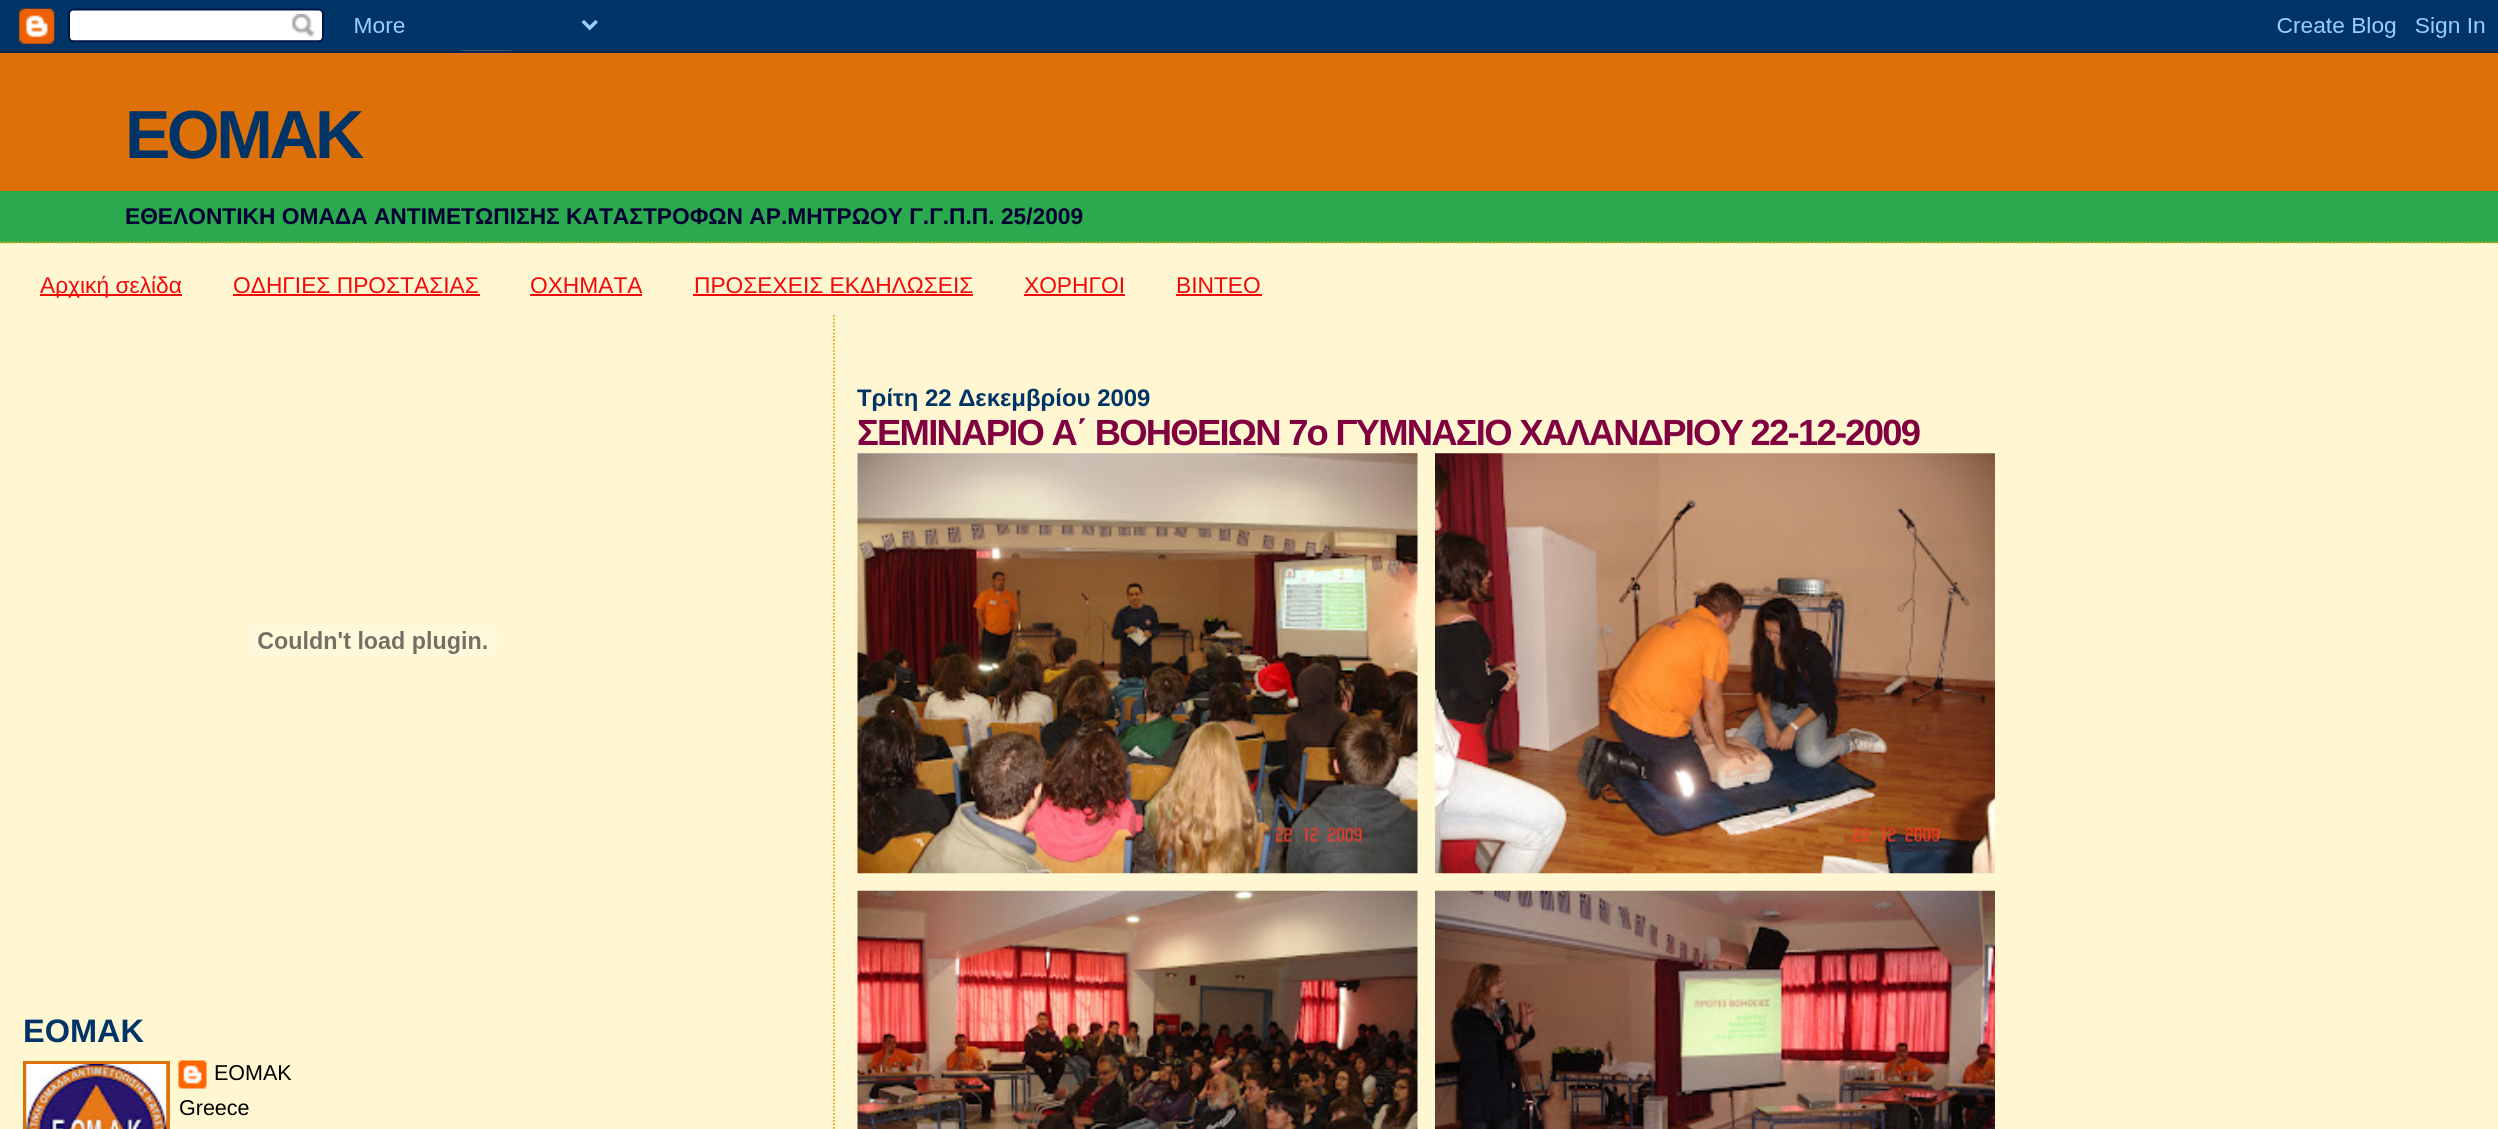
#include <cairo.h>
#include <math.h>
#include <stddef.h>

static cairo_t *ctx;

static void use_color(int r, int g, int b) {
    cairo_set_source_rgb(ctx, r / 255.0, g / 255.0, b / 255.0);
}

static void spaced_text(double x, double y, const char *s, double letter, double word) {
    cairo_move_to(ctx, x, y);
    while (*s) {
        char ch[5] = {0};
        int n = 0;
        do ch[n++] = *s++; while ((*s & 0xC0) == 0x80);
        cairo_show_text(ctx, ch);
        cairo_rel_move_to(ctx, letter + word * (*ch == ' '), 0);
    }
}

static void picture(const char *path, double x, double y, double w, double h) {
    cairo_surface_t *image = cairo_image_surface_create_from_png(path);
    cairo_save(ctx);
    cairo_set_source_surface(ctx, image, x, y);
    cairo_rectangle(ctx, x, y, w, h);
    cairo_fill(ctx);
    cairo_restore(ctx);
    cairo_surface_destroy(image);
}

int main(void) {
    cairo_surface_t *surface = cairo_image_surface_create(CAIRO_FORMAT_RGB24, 2498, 1129);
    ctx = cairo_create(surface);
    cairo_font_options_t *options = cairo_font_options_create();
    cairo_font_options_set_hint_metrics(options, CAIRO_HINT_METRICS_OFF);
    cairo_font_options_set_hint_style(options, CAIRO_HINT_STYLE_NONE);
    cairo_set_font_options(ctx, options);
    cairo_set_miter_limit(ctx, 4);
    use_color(255, 246, 210);
    cairo_paint(ctx);
    picture("img1.png", 0, 0, 2498, 53);
    use_color(43, 169, 79);
    cairo_rectangle(ctx, 0, 191, 2498, 52);
    cairo_fill(ctx);
    cairo_new_path(ctx);
    cairo_move_to(ctx, 0, 242.5);
    cairo_line_to(ctx, 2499, 242.5);
    use_color(224, 173, 18);
    cairo_set_line_width(ctx, 1.8);
    cairo_set_dash(ctx, (double[]){1.75, 1.75}, 2, 0);
    cairo_stroke(ctx);
    use_color(222, 112, 8);
    cairo_rectangle(ctx, 0, 53, 2498, 138);
    cairo_fill(ctx);
    cairo_select_font_face(ctx, "Liberation Sans", CAIRO_FONT_SLANT_NORMAL, CAIRO_FONT_WEIGHT_BOLD);
    cairo_set_font_size(ctx, 68);
    use_color(0, 51, 102);
    spaced_text(125, 158, "EOMAK", -3.5, 0);
    cairo_set_font_size(ctx, 22.75);
    use_color(0, 0, 51);
    cairo_move_to(ctx, 125, 224);
    cairo_show_text(ctx, "ΕΘΕΛΟΝΤΙΚΗ ΟΜΑΔΑ ΑΝΤΙΜΕΤΩΠΙΣΗΣ ΚΑΤΑΣΤΡΟΦΩΝ ΑΡ.ΜΗΤΡΩΟΥ Γ.Γ.Π.Π. 25/2009");
    use_color(242, 10, 10);
    cairo_rectangle(ctx, 40, 294, 142, 2);
    cairo_fill(ctx);
    cairo_select_font_face(ctx, "Liberation Sans", CAIRO_FONT_SLANT_NORMAL, CAIRO_FONT_WEIGHT_NORMAL);
    cairo_move_to(ctx, 40, 293);
    cairo_show_text(ctx, "Αρχική σελίδα");
    cairo_move_to(ctx, 233, 293);
    cairo_show_text(ctx, "ΟΔΗΓΙΕΣ ΠΡΟΣΤΑΣΙΑΣ");
    cairo_rectangle(ctx, 233, 294, 247, 2);
    cairo_fill(ctx);
    cairo_move_to(ctx, 530, 293);
    cairo_show_text(ctx, "ΟΧΗΜΑΤΑ");
    cairo_rectangle(ctx, 530, 294, 112, 2);
    cairo_fill(ctx);
    cairo_move_to(ctx, 694, 293);
    cairo_show_text(ctx, "ΠΡΟΣΕΧΕΙΣ ΕΚΔΗΛΩΣΕΙΣ");
    cairo_rectangle(ctx, 693, 294, 280, 2);
    cairo_fill(ctx);
    cairo_move_to(ctx, 1024, 293);
    cairo_show_text(ctx, "ΧΟΡΗΓΟΙ");
    cairo_rectangle(ctx, 1024, 294, 101, 2);
    cairo_fill(ctx);
    cairo_move_to(ctx, 1176, 293);
    cairo_show_text(ctx, "ΒΙΝΤΕΟ");
    cairo_rectangle(ctx, 1176, 294, 86, 2);
    cairo_fill(ctx);
    cairo_new_path(ctx);
    cairo_move_to(ctx, 834, 315);
    cairo_line_to(ctx, 834, 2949);
    use_color(224, 173, 18);
    cairo_stroke(ctx);
    cairo_select_font_face(ctx, "Liberation Sans", CAIRO_FONT_SLANT_NORMAL, CAIRO_FONT_WEIGHT_BOLD);
    cairo_set_font_size(ctx, 23.9);
    use_color(0, 51, 102);
    cairo_move_to(ctx, 857, 406);
    cairo_show_text(ctx, "Τρίτη 22 Δεκεμβρίου 2009");
    cairo_set_font_size(ctx, 36.4);
    use_color(128, 0, 64);
    spaced_text(857, 445, "ΣΕΜΙΝΑΡΙΟ Α΄ ΒΟΗΘΕΙΩΝ 7ο ΓΥΜΝΑΣΙΟ ΧΑΛΑΝΔΡΙΟΥ 22-12-2009", -1.75, 0);
    picture("img2.png", 857, 453, 561, 421);
    picture("img3.png", 1435, 453, 560, 421);
    picture("img4.png", 857, 890, 561, 239);
    picture("img5.png", 1435, 890, 560, 239);
    picture("img6.png", 247, 625, 252, 31);
    cairo_set_font_size(ctx, 32.5);
    use_color(0, 51, 102);
    cairo_move_to(ctx, 23, 1042);
    cairo_show_text(ctx, "EOMAK");
    cairo_rectangle(ctx, 25, 1063, 143, 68);
    use_color(222, 112, 8);
    cairo_set_line_width(ctx, 4);
    cairo_set_dash(ctx, NULL, 0, 0);
    cairo_stroke(ctx);
    picture("img7.png", 26, 1064, 141, 65);
    picture("img8.png", 178, 1060, 29, 29);
    cairo_select_font_face(ctx, "Liberation Sans", CAIRO_FONT_SLANT_NORMAL, CAIRO_FONT_WEIGHT_NORMAL);
    cairo_set_font_size(ctx, 21.5);
    use_color(0, 0, 0);
    cairo_move_to(ctx, 214, 1080);
    cairo_show_text(ctx, "ΕΟΜΑΚ");
    cairo_move_to(ctx, 179, 1115);
    cairo_show_text(ctx, "Greece");
    cairo_surface_write_to_png(surface, "result.png");
    cairo_font_options_destroy(options);
    cairo_destroy(ctx);
    cairo_surface_destroy(surface);
    return 0;
}
